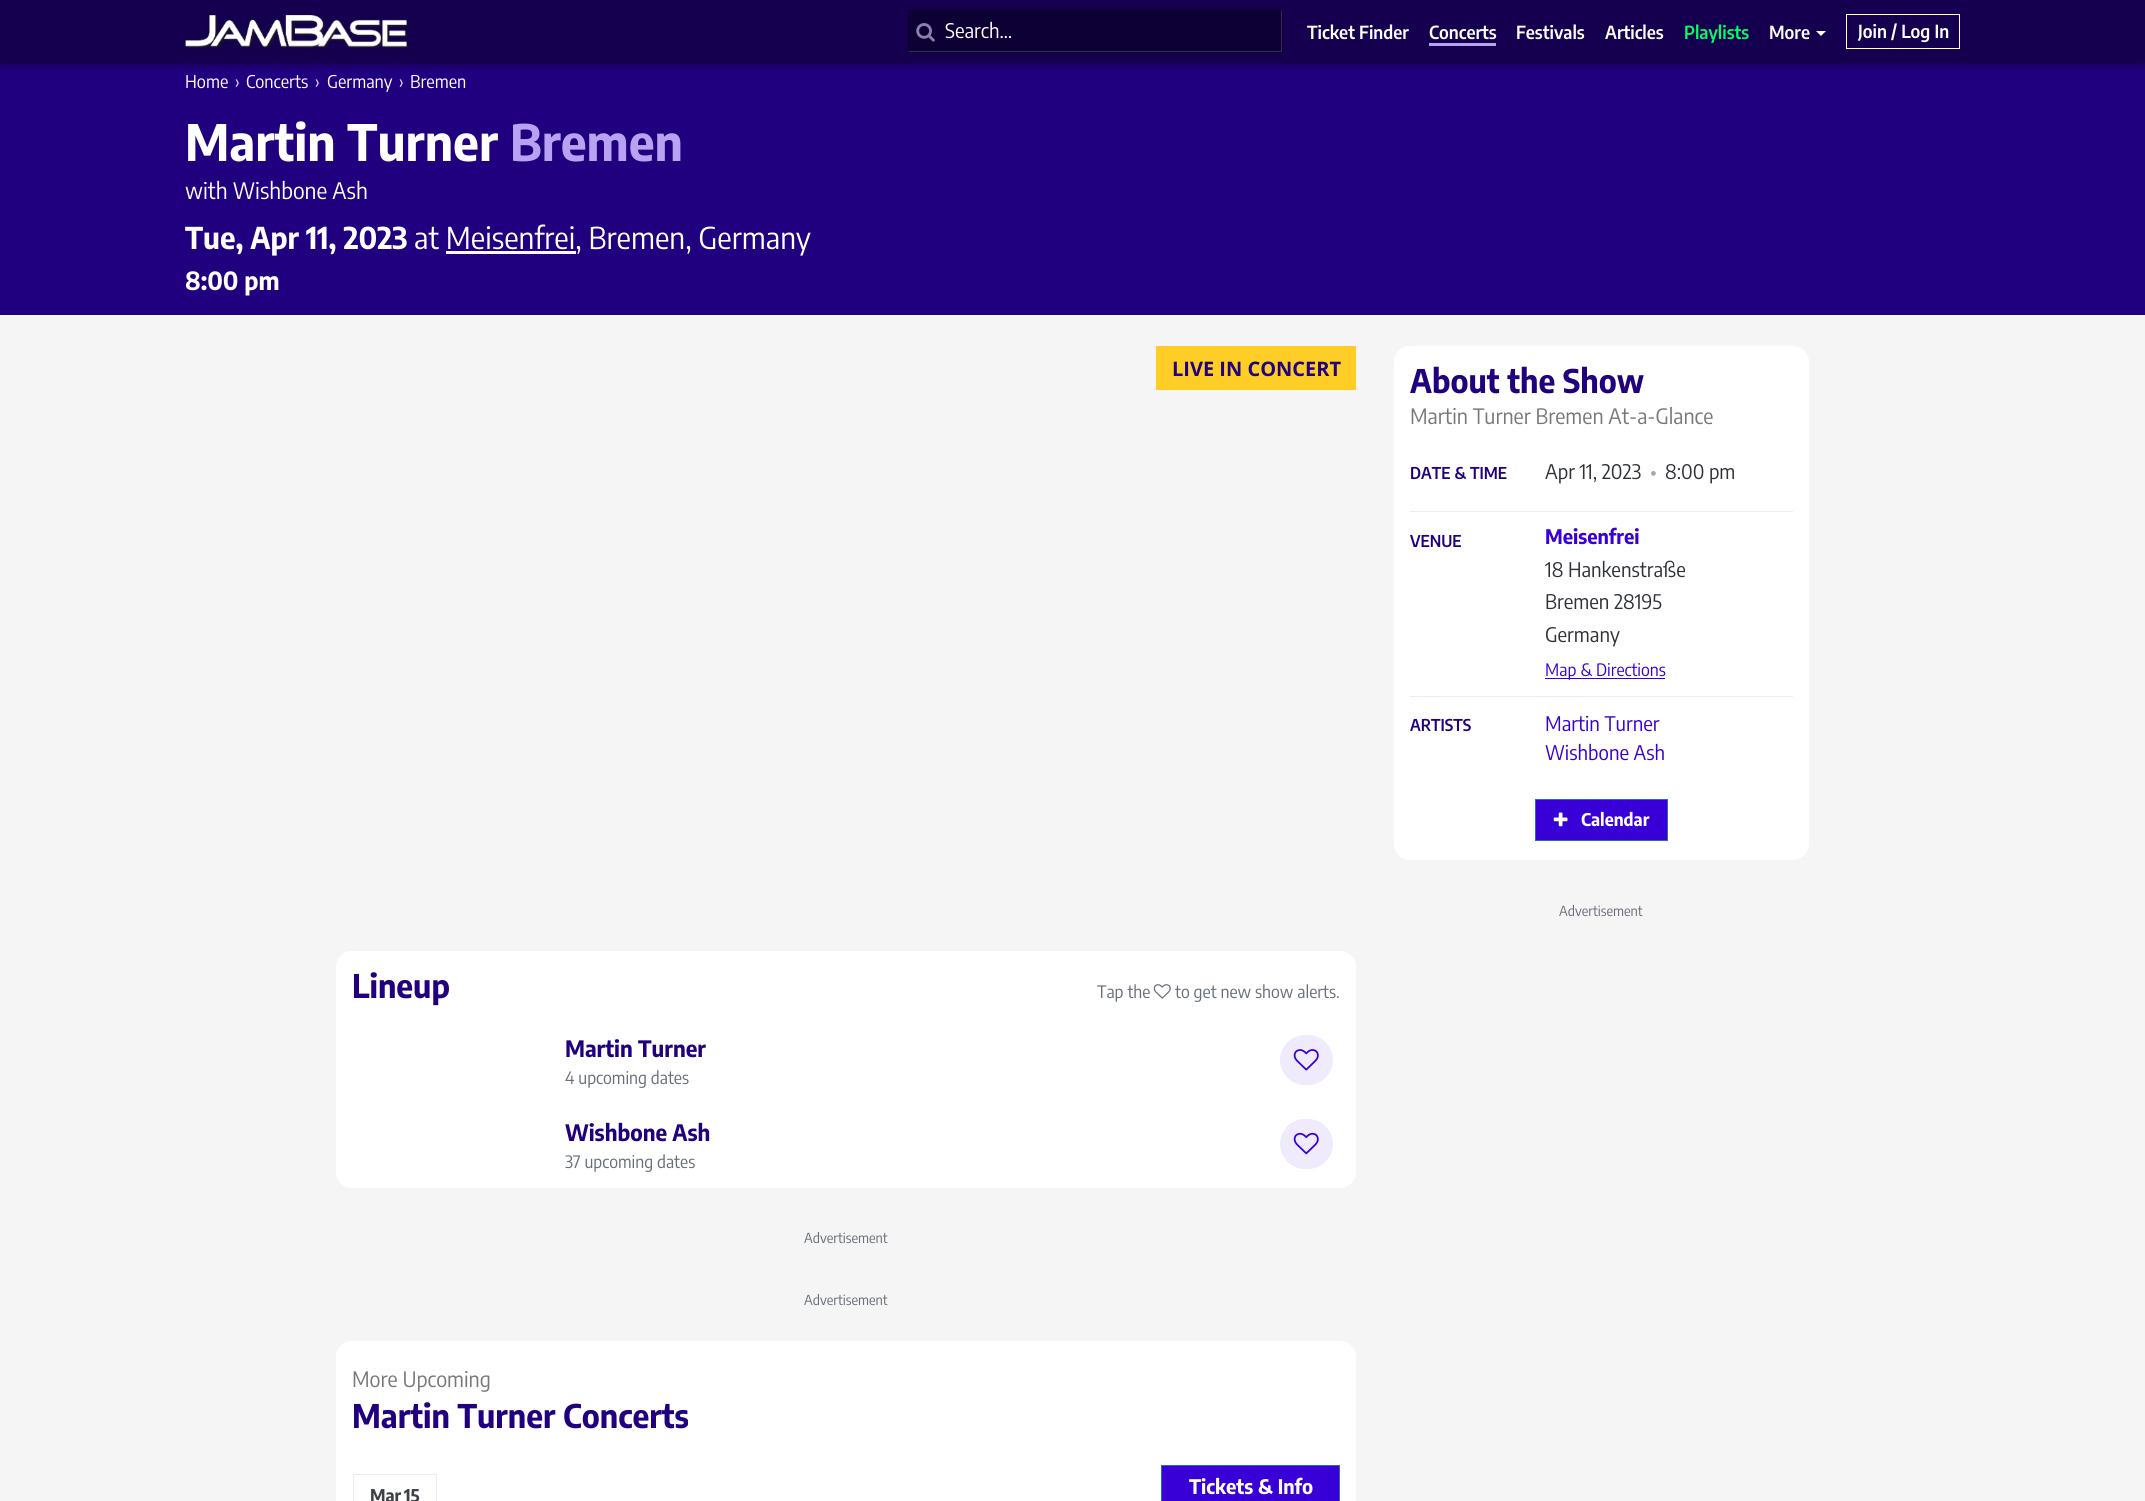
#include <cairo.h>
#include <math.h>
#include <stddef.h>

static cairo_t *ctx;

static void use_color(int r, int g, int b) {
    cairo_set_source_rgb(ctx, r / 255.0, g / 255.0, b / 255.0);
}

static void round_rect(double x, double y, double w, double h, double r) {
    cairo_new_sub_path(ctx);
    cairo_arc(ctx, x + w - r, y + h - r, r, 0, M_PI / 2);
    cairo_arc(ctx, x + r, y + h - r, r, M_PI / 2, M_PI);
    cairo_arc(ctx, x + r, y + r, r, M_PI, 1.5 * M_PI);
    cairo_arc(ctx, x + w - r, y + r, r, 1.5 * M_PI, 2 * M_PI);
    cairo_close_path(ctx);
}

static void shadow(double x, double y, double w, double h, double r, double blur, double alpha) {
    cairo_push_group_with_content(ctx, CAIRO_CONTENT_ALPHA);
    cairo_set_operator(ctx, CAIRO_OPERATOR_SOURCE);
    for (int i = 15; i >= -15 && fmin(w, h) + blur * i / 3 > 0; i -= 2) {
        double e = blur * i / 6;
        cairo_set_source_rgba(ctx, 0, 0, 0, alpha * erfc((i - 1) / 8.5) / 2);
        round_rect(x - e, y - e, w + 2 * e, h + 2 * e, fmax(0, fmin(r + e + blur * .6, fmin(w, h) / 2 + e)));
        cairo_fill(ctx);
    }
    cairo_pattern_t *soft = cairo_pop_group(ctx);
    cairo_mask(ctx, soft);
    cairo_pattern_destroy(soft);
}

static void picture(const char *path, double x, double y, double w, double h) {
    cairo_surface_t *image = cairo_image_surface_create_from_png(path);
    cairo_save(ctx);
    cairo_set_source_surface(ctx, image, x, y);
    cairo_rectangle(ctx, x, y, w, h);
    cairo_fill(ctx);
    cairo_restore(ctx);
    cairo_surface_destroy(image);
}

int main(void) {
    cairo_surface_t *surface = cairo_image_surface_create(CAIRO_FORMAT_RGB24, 2145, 1501);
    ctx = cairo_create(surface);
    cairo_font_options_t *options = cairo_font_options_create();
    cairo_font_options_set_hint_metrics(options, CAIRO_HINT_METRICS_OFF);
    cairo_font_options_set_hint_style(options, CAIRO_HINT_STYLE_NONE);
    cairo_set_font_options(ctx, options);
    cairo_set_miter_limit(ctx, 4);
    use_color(245, 245, 245);
    cairo_paint(ctx);
    use_color(33, 0, 128);
    cairo_rectangle(ctx, 0, 63, 2145, 252);
    cairo_fill(ctx);
    use_color(0, 0, 0);
    shadow(0, 0, 2145, 63, 0, 4.5, 0.66);
    use_color(20, 0, 78);
    cairo_rectangle(ctx, 0, 0, 2145, 63);
    cairo_fill(ctx);
    picture("img1.png", 185, 15, 225, 34);
    use_color(13, 0, 52);
    cairo_rectangle(ctx, 908, 10, 375, 43);
    cairo_fill(ctx);
    use_color(11, 0, 43);
    cairo_new_path(ctx);
    cairo_move_to(ctx, 908, 10);
    cairo_line_to(ctx, 1282, 10);
    cairo_line_to(ctx, 1281, 11);
    cairo_line_to(ctx, 909, 11);
    cairo_close_path(ctx);
    cairo_fill(ctx);
    cairo_set_source_rgba(ctx, 1, 1, 1, 0.16);
    cairo_new_path(ctx);
    cairo_move_to(ctx, 1282, 10);
    cairo_line_to(ctx, 1282, 52);
    cairo_line_to(ctx, 1281, 51);
    cairo_line_to(ctx, 1281, 11);
    cairo_close_path(ctx);
    cairo_fill(ctx);
    cairo_new_path(ctx);
    cairo_move_to(ctx, 1282, 52);
    cairo_line_to(ctx, 908, 52);
    cairo_line_to(ctx, 909, 51);
    cairo_line_to(ctx, 1281, 51);
    cairo_close_path(ctx);
    cairo_fill(ctx);
    cairo_set_source_rgba(ctx, 0, 0, 0, 0.18);
    cairo_new_path(ctx);
    cairo_move_to(ctx, 908, 52);
    cairo_line_to(ctx, 908, 10);
    cairo_line_to(ctx, 909, 11);
    cairo_line_to(ctx, 909, 51);
    cairo_close_path(ctx);
    cairo_fill(ctx);
    picture("img2.png", 916, 23, 19, 19);
    cairo_select_font_face(ctx, "Encode Sans Semi Condensed", CAIRO_FONT_SLANT_NORMAL, CAIRO_FONT_WEIGHT_NORMAL);
    cairo_set_font_size(ctx, 20);
    use_color(255, 255, 255);
    cairo_move_to(ctx, 945, 38);
    cairo_show_text(ctx, "Search…");
    cairo_select_font_face(ctx, "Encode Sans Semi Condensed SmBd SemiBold", CAIRO_FONT_SLANT_NORMAL, CAIRO_FONT_WEIGHT_NORMAL);
    cairo_set_font_size(ctx, 18);
    cairo_move_to(ctx, 1307, 39);
    cairo_show_text(ctx, "Ticket Finder");
    cairo_move_to(ctx, 1429, 39);
    cairo_show_text(ctx, "Concerts");
    use_color(183, 163, 241);
    cairo_rectangle(ctx, 1429, 43, 67, 3);
    cairo_fill(ctx);
    use_color(255, 255, 255);
    cairo_move_to(ctx, 1516, 39);
    cairo_show_text(ctx, "Festivals");
    cairo_move_to(ctx, 1605, 39);
    cairo_show_text(ctx, "Articles");
    use_color(0, 255, 102);
    cairo_move_to(ctx, 1684, 39);
    cairo_show_text(ctx, "Playlists");
    use_color(255, 255, 255);
    cairo_move_to(ctx, 1769, 39);
    cairo_show_text(ctx, "More");
    cairo_new_path(ctx);
    cairo_move_to(ctx, 1816, 31);
    cairo_line_to(ctx, 1826, 31);
    cairo_line_to(ctx, 1821, 36);
    cairo_close_path(ctx);
    cairo_fill(ctx);
    cairo_rectangle(ctx, 1846.5, 14.5, 113, 34);
    cairo_set_line_width(ctx, 1);
    cairo_stroke(ctx);
    cairo_move_to(ctx, 1858, 38);
    cairo_show_text(ctx, "Join / Log In");
    cairo_select_font_face(ctx, "Encode Sans Semi Condensed", CAIRO_FONT_SLANT_NORMAL, CAIRO_FONT_WEIGHT_NORMAL);
    cairo_set_font_size(ctx, 17.5);
    cairo_move_to(ctx, 185, 88);
    cairo_show_text(ctx, "Home");
    use_color(224, 215, 249);
    cairo_move_to(ctx, 235, 88);
    cairo_show_text(ctx, "›");
    use_color(255, 255, 255);
    cairo_move_to(ctx, 246, 88);
    cairo_show_text(ctx, "Concerts");
    use_color(224, 215, 249);
    cairo_move_to(ctx, 315, 88);
    cairo_show_text(ctx, "›");
    use_color(255, 255, 255);
    cairo_move_to(ctx, 327, 88);
    cairo_show_text(ctx, "Germany");
    use_color(224, 215, 249);
    cairo_move_to(ctx, 399, 88);
    cairo_show_text(ctx, "›");
    use_color(255, 255, 255);
    cairo_move_to(ctx, 410, 88);
    cairo_show_text(ctx, "Bremen");
    cairo_select_font_face(ctx, "Encode Sans Semi Condensed", CAIRO_FONT_SLANT_NORMAL, CAIRO_FONT_WEIGHT_BOLD);
    cairo_set_font_size(ctx, 50);
    cairo_move_to(ctx, 185, 161);
    cairo_show_text(ctx, "Martin Turner");
    use_color(183, 163, 241);
    cairo_move_to(ctx, 510, 161);
    cairo_show_text(ctx, "Bremen");
    cairo_select_font_face(ctx, "Encode Sans Semi Condensed", CAIRO_FONT_SLANT_NORMAL, CAIRO_FONT_WEIGHT_NORMAL);
    cairo_set_font_size(ctx, 22.5);
    use_color(255, 255, 255);
    cairo_move_to(ctx, 185, 199);
    cairo_show_text(ctx, "with Wishbone Ash");
    cairo_select_font_face(ctx, "Encode Sans Semi Condensed", CAIRO_FONT_SLANT_NORMAL, CAIRO_FONT_WEIGHT_BOLD);
    cairo_set_font_size(ctx, 30);
    cairo_move_to(ctx, 185, 249);
    cairo_show_text(ctx, "Tue, Apr 11, 2023");
    cairo_select_font_face(ctx, "Encode Sans Semi Condensed", CAIRO_FONT_SLANT_NORMAL, CAIRO_FONT_WEIGHT_NORMAL);
    cairo_move_to(ctx, 414, 249);
    cairo_show_text(ctx, "at Meisenfrei, Bremen, Germany");
    cairo_rectangle(ctx, 446, 251, 130, 3);
    cairo_fill(ctx);
    cairo_select_font_face(ctx, "Encode Sans Semi Condensed", CAIRO_FONT_SLANT_NORMAL, CAIRO_FONT_WEIGHT_BOLD);
    cairo_set_font_size(ctx, 25);
    cairo_move_to(ctx, 185, 290);
    cairo_show_text(ctx, "8:00 pm");
    use_color(255, 206, 38);
    cairo_rectangle(ctx, 1156, 346, 200, 44);
    cairo_fill(ctx);
    cairo_select_font_face(ctx, "Open Sans", CAIRO_FONT_SLANT_NORMAL, CAIRO_FONT_WEIGHT_BOLD);
    cairo_set_font_size(ctx, 20);
    use_color(33, 0, 128);
    cairo_move_to(ctx, 1172, 376);
    cairo_show_text(ctx, "LIVE IN CONCERT");
    use_color(255, 255, 255);
    cairo_new_path(ctx);
    cairo_move_to(ctx, 352, 951);
    cairo_line_to(ctx, 1340, 951);
    cairo_curve_to(ctx, 1349, 951, 1356, 958, 1356, 967);
    cairo_line_to(ctx, 1356, 1020);
    cairo_line_to(ctx, 336, 1020);
    cairo_line_to(ctx, 336, 967);
    cairo_curve_to(ctx, 336, 958, 343, 951, 352, 951);
    cairo_close_path(ctx);
    cairo_fill(ctx);
    cairo_select_font_face(ctx, "Encode Sans Semi Condensed", CAIRO_FONT_SLANT_NORMAL, CAIRO_FONT_WEIGHT_BOLD);
    cairo_set_font_size(ctx, 32.5);
    use_color(33, 0, 128);
    cairo_move_to(ctx, 352, 998);
    cairo_show_text(ctx, "Lineup");
    cairo_select_font_face(ctx, "Encode Sans Semi Condensed", CAIRO_FONT_SLANT_NORMAL, CAIRO_FONT_WEIGHT_NORMAL);
    cairo_set_font_size(ctx, 17);
    use_color(102, 109, 118);
    cairo_move_to(ctx, 1097, 998);
    cairo_show_text(ctx, "Tap the");
    picture("img3.png", 1153, 984, 18, 15);
    cairo_move_to(ctx, 1175, 998);
    cairo_show_text(ctx, "to get new show alerts.");
    use_color(255, 255, 255);
    cairo_new_path(ctx);
    cairo_move_to(ctx, 336, 1020);
    cairo_line_to(ctx, 1356, 1020);
    cairo_line_to(ctx, 1356, 1172);
    cairo_curve_to(ctx, 1356, 1181, 1349, 1188, 1340, 1188);
    cairo_line_to(ctx, 352, 1188);
    cairo_curve_to(ctx, 343, 1188, 336, 1181, 336, 1172);
    cairo_close_path(ctx);
    cairo_fill(ctx);
    cairo_select_font_face(ctx, "Encode Sans Semi Condensed", CAIRO_FONT_SLANT_NORMAL, CAIRO_FONT_WEIGHT_BOLD);
    cairo_set_font_size(ctx, 22.5);
    use_color(33, 0, 128);
    cairo_move_to(ctx, 565, 1057);
    cairo_show_text(ctx, "Martin Turner");
    cairo_select_font_face(ctx, "Encode Sans Semi Condensed", CAIRO_FONT_SLANT_NORMAL, CAIRO_FONT_WEIGHT_NORMAL);
    cairo_set_font_size(ctx, 17);
    use_color(102, 109, 118);
    cairo_move_to(ctx, 565, 1084);
    cairo_show_text(ctx, "4 upcoming dates");
    use_color(239, 235, 252);
    round_rect(1280.5, 1035.5, 52, 49, 24.5);
    cairo_fill_preserve(ctx);
    cairo_stroke(ctx);
    picture("img4.png", 1293, 1049, 26, 22);
    cairo_select_font_face(ctx, "Encode Sans Semi Condensed", CAIRO_FONT_SLANT_NORMAL, CAIRO_FONT_WEIGHT_BOLD);
    cairo_set_font_size(ctx, 22.5);
    use_color(33, 0, 128);
    cairo_move_to(ctx, 565, 1141);
    cairo_show_text(ctx, "Wishbone Ash");
    cairo_select_font_face(ctx, "Encode Sans Semi Condensed", CAIRO_FONT_SLANT_NORMAL, CAIRO_FONT_WEIGHT_NORMAL);
    cairo_set_font_size(ctx, 17);
    use_color(102, 109, 118);
    cairo_move_to(ctx, 565, 1168);
    cairo_show_text(ctx, "37 upcoming dates");
    use_color(239, 235, 252);
    round_rect(1280.5, 1119.5, 52, 49, 24.5);
    cairo_fill_preserve(ctx);
    cairo_stroke(ctx);
    picture("img5.png", 1293, 1132, 26, 23);
    cairo_set_font_size(ctx, 13.75);
    use_color(102, 109, 118);
    cairo_move_to(ctx, 804, 1243);
    cairo_show_text(ctx, "Advertisement");
    cairo_move_to(ctx, 804, 1305);
    cairo_show_text(ctx, "Advertisement");
    use_color(255, 255, 255);
    round_rect(336, 1341, 1020, 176, 16);
    cairo_fill(ctx);
    cairo_set_font_size(ctx, 21.1);
    use_color(119, 119, 119);
    cairo_move_to(ctx, 352, 1387);
    cairo_show_text(ctx, "More Upcoming");
    cairo_select_font_face(ctx, "Encode Sans Semi Condensed", CAIRO_FONT_SLANT_NORMAL, CAIRO_FONT_WEIGHT_BOLD);
    cairo_set_font_size(ctx, 32.5);
    use_color(33, 0, 128);
    cairo_move_to(ctx, 352, 1428);
    cairo_show_text(ctx, "Martin Turner Concerts");
    use_color(235, 236, 238);
    cairo_rectangle(ctx, 353, 1474, 85, 1);
    cairo_fill(ctx);
    cairo_rectangle(ctx, 436, 1474, 1, 27);
    cairo_fill(ctx);
    cairo_rectangle(ctx, 353, 1474, 1, 27);
    cairo_fill(ctx);
    cairo_set_font_size(ctx, 17.5);
    use_color(61, 65, 71);
    cairo_move_to(ctx, 370, 1502);
    cairo_show_text(ctx, "Mar");
    cairo_move_to(ctx, 404, 1502);
    cairo_show_text(ctx, "15");
    use_color(56, 0, 215);
    cairo_rectangle(ctx, 1161.5, 1465.5, 178, 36);
    cairo_fill_preserve(ctx);
    use_color(46, 109, 164);
    cairo_stroke(ctx);
    cairo_set_font_size(ctx, 20);
    use_color(255, 255, 255);
    cairo_move_to(ctx, 1189, 1494);
    cairo_show_text(ctx, "Tickets & Info");
    round_rect(1394, 346, 415, 514, 16);
    cairo_fill(ctx);
    cairo_set_font_size(ctx, 32.5);
    use_color(33, 0, 128);
    cairo_move_to(ctx, 1410, 393);
    cairo_show_text(ctx, "About the Show");
    cairo_select_font_face(ctx, "Encode Sans Semi Condensed", CAIRO_FONT_SLANT_NORMAL, CAIRO_FONT_WEIGHT_NORMAL);
    cairo_set_font_size(ctx, 21.1);
    use_color(119, 119, 119);
    cairo_move_to(ctx, 1410, 424);
    cairo_show_text(ctx, "Martin Turner Bremen At-a-Glance");
    cairo_select_font_face(ctx, "Encode Sans Semi Condensed SmBd SemiBold", CAIRO_FONT_SLANT_NORMAL, CAIRO_FONT_WEIGHT_NORMAL);
    cairo_set_font_size(ctx, 16.25);
    use_color(33, 0, 128);
    cairo_move_to(ctx, 1410, 479);
    cairo_show_text(ctx, "DATE & TIME");
    cairo_select_font_face(ctx, "Encode Sans Semi Condensed", CAIRO_FONT_SLANT_NORMAL, CAIRO_FONT_WEIGHT_NORMAL);
    cairo_set_font_size(ctx, 20);
    use_color(46, 49, 53);
    cairo_move_to(ctx, 1545, 479);
    cairo_show_text(ctx, "Apr 11, 2023");
    use_color(163, 167, 173);
    cairo_move_to(ctx, 1650, 479);
    cairo_show_text(ctx, "•");
    use_color(46, 49, 53);
    cairo_move_to(ctx, 1665, 479);
    cairo_show_text(ctx, "8:00 pm");
    use_color(235, 236, 238);
    cairo_rectangle(ctx, 1410, 511, 383, 1);
    cairo_fill(ctx);
    cairo_select_font_face(ctx, "Encode Sans Semi Condensed SmBd SemiBold", CAIRO_FONT_SLANT_NORMAL, CAIRO_FONT_WEIGHT_NORMAL);
    cairo_set_font_size(ctx, 16.25);
    use_color(33, 0, 128);
    cairo_move_to(ctx, 1410, 547);
    cairo_show_text(ctx, "VENUE");
    cairo_select_font_face(ctx, "Encode Sans Semi Condensed", CAIRO_FONT_SLANT_NORMAL, CAIRO_FONT_WEIGHT_BOLD);
    cairo_set_font_size(ctx, 20);
    use_color(56, 0, 215);
    cairo_move_to(ctx, 1545, 544);
    cairo_show_text(ctx, "Meisenfrei");
    cairo_select_font_face(ctx, "Encode Sans Semi Condensed", CAIRO_FONT_SLANT_NORMAL, CAIRO_FONT_WEIGHT_NORMAL);
    use_color(46, 49, 53);
    cairo_move_to(ctx, 1545, 577);
    cairo_show_text(ctx, "18 Hankenstraße");
    cairo_move_to(ctx, 1545, 609);
    cairo_show_text(ctx, "Bremen 28195");
    cairo_move_to(ctx, 1545, 642);
    cairo_show_text(ctx, "Germany");
    use_color(56, 0, 215);
    cairo_rectangle(ctx, 1545, 678, 120, 1);
    cairo_fill(ctx);
    cairo_set_font_size(ctx, 17);
    cairo_move_to(ctx, 1545, 676);
    cairo_show_text(ctx, "Map & Directions");
    use_color(235, 236, 238);
    cairo_rectangle(ctx, 1410, 696, 383, 1);
    cairo_fill(ctx);
    cairo_select_font_face(ctx, "Encode Sans Semi Condensed SmBd SemiBold", CAIRO_FONT_SLANT_NORMAL, CAIRO_FONT_WEIGHT_NORMAL);
    cairo_set_font_size(ctx, 16.25);
    use_color(33, 0, 128);
    cairo_move_to(ctx, 1410, 731);
    cairo_show_text(ctx, "ARTISTS");
    cairo_select_font_face(ctx, "Encode Sans Semi Condensed", CAIRO_FONT_SLANT_NORMAL, CAIRO_FONT_WEIGHT_NORMAL);
    cairo_set_font_size(ctx, 20);
    use_color(56, 0, 215);
    cairo_move_to(ctx, 1545, 731);
    cairo_show_text(ctx, "Martin Turner");
    cairo_move_to(ctx, 1545, 760);
    cairo_show_text(ctx, "Wishbone Ash");
    cairo_rectangle(ctx, 1535.5, 799.5, 132, 41);
    cairo_fill_preserve(ctx);
    use_color(46, 109, 164);
    cairo_stroke(ctx);
    picture("img6.png", 1553, 812, 15, 15);
    cairo_select_font_face(ctx, "Encode Sans Semi Condensed", CAIRO_FONT_SLANT_NORMAL, CAIRO_FONT_WEIGHT_BOLD);
    cairo_set_font_size(ctx, 17.5);
    use_color(255, 255, 255);
    cairo_move_to(ctx, 1581, 826);
    cairo_show_text(ctx, "Calendar");
    cairo_select_font_face(ctx, "Encode Sans Semi Condensed", CAIRO_FONT_SLANT_NORMAL, CAIRO_FONT_WEIGHT_NORMAL);
    cairo_set_font_size(ctx, 13.75);
    use_color(102, 109, 118);
    cairo_move_to(ctx, 1559, 916);
    cairo_show_text(ctx, "Advertisement");
    cairo_surface_write_to_png(surface, "result.png");
    cairo_font_options_destroy(options);
    cairo_destroy(ctx);
    cairo_surface_destroy(surface);
    return 0;
}
